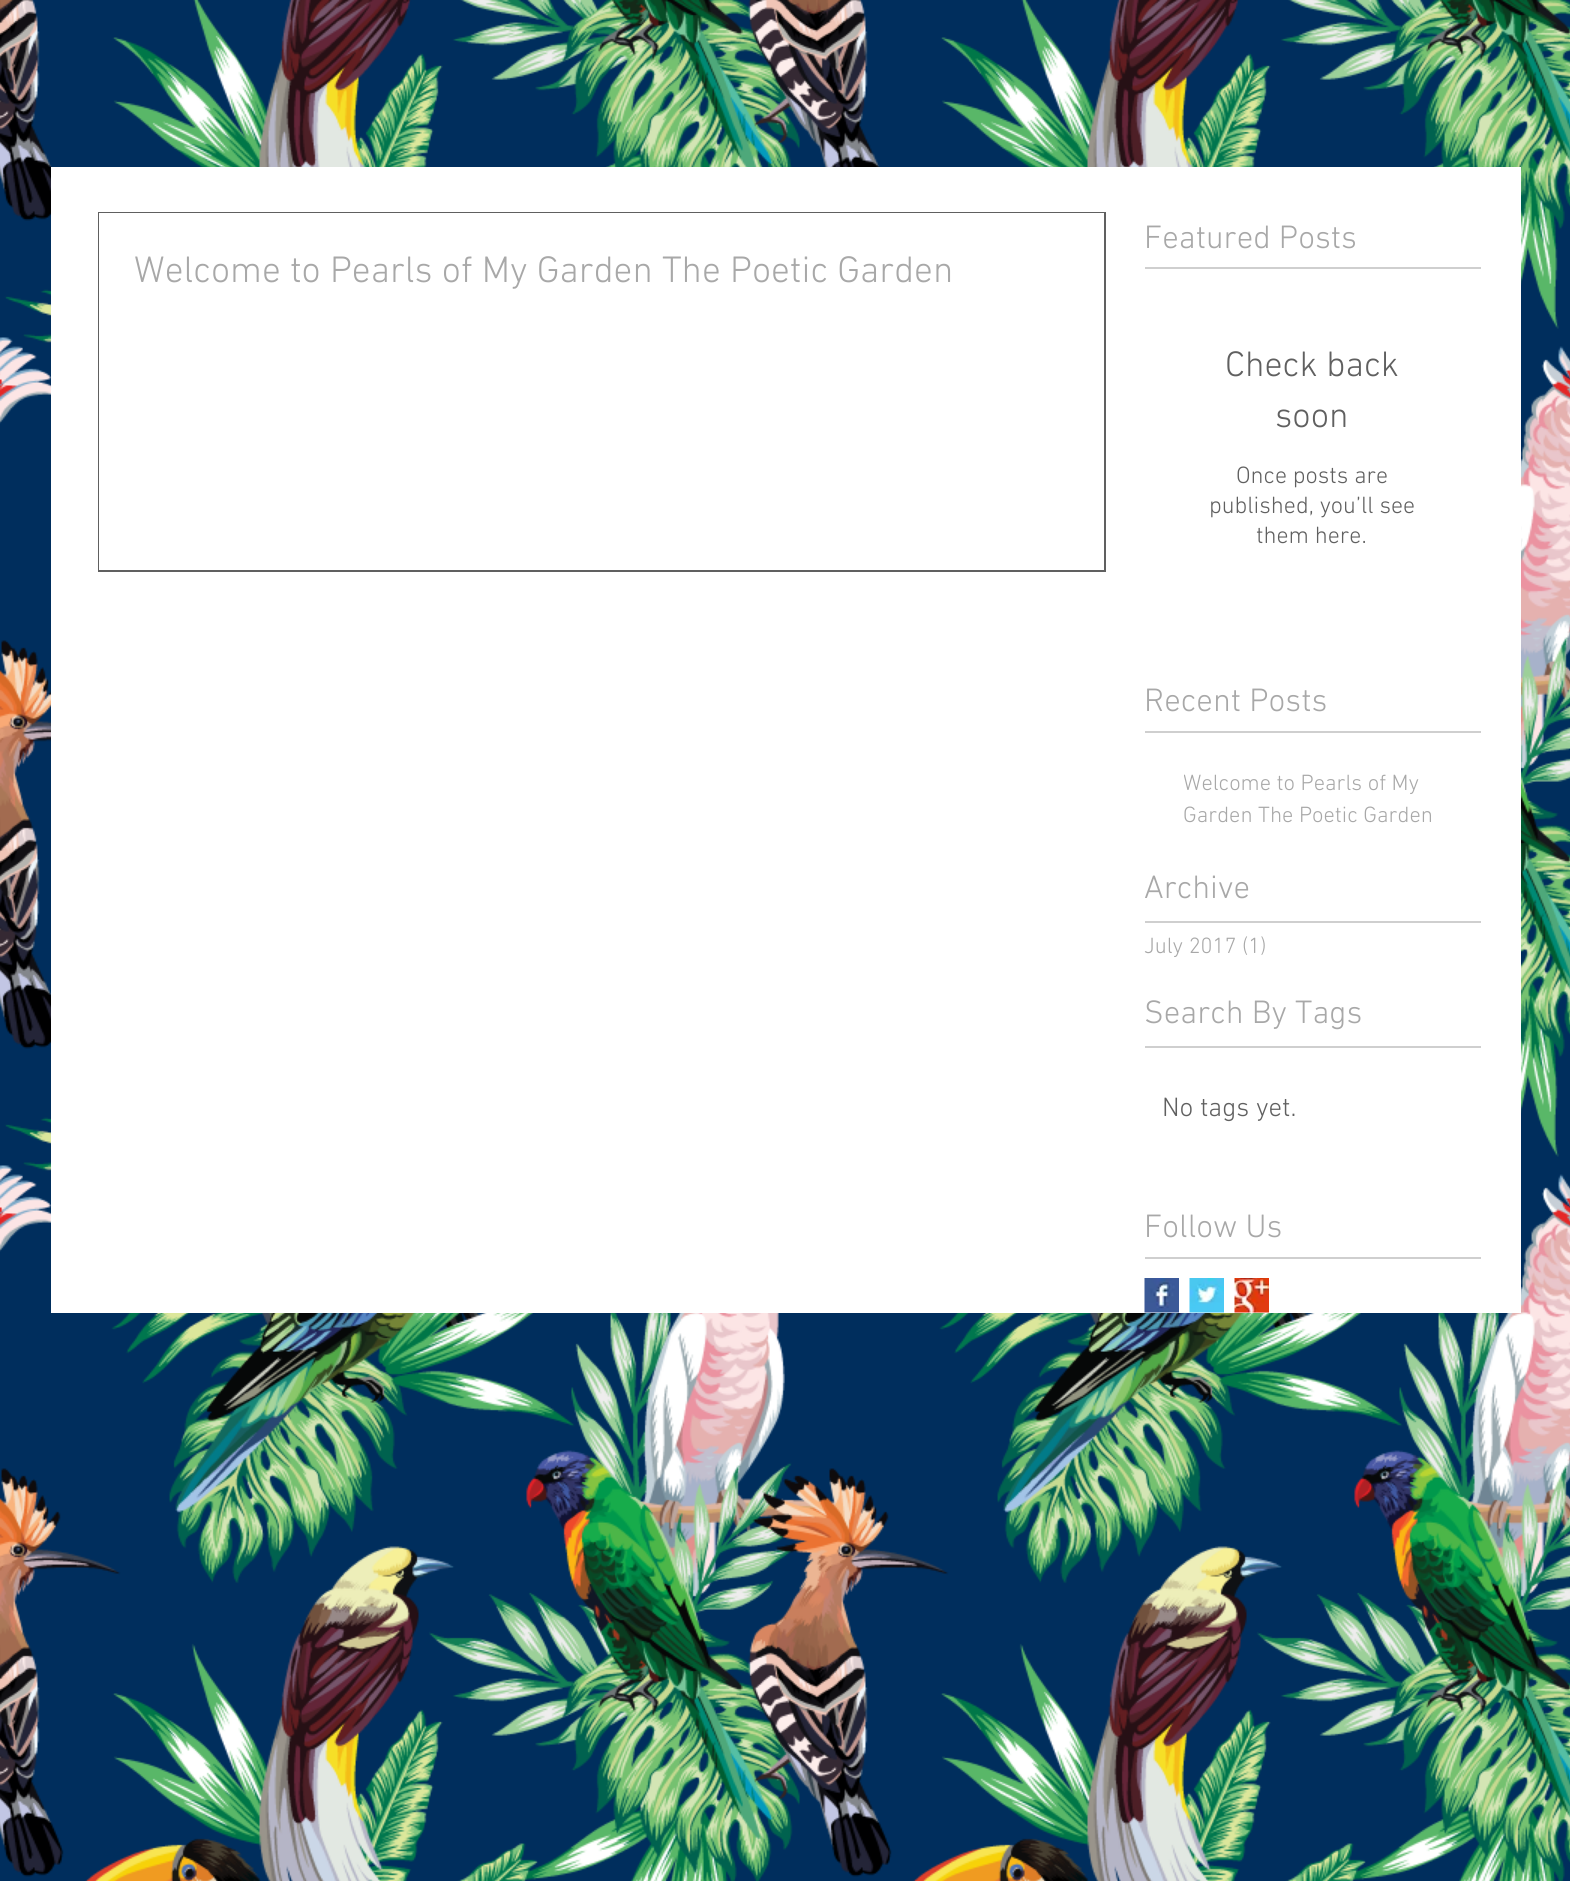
#include <cairo.h>
#include <math.h>
#include <stddef.h>

static cairo_t *ctx;

static void use_color(int r, int g, int b) {
    cairo_set_source_rgb(ctx, r / 255.0, g / 255.0, b / 255.0);
}

static void picture(const char *path, double x, double y, double w, double h) {
    cairo_surface_t *image = cairo_image_surface_create_from_png(path);
    cairo_save(ctx);
    cairo_set_source_surface(ctx, image, x, y);
    cairo_rectangle(ctx, x, y, w, h);
    cairo_fill(ctx);
    cairo_restore(ctx);
    cairo_surface_destroy(image);
}

int main(void) {
    cairo_surface_t *surface = cairo_image_surface_create(CAIRO_FORMAT_RGB24, 1570, 1881);
    ctx = cairo_create(surface);
    cairo_font_options_t *options = cairo_font_options_create();
    cairo_font_options_set_hint_metrics(options, CAIRO_HINT_METRICS_OFF);
    cairo_font_options_set_hint_style(options, CAIRO_HINT_STYLE_NONE);
    cairo_set_font_options(ctx, options);
    cairo_set_miter_limit(ctx, 4);
    use_color(0, 46, 93);
    cairo_paint(ctx);
    picture("img1.png", 0, 0, 1570, 1881);
    use_color(255, 255, 255);
    cairo_rectangle(ctx, 51, 167, 1470, 1146);
    cairo_fill(ctx);
    cairo_select_font_face(ctx, "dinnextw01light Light", CAIRO_FONT_SLANT_NORMAL, CAIRO_FONT_WEIGHT_NORMAL);
    cairo_set_font_size(ctx, 33);
    use_color(168, 168, 168);
    cairo_move_to(ctx, 1144, 248);
    cairo_show_text(ctx, "Featured Posts");
    cairo_rectangle(ctx, 99, 213, 1006, 358);
    use_color(96, 96, 96);
    cairo_stroke(ctx);
    use_color(255, 255, 255);
    cairo_rectangle(ctx, 99, 213, 1005, 357);
    cairo_fill(ctx);
    cairo_set_font_size(ctx, 37.5);
    use_color(168, 168, 168);
    cairo_move_to(ctx, 134, 282);
    cairo_show_text(ctx, "Welcome to Pearls of My Garden The Poetic Garden");
    use_color(207, 207, 207);
    cairo_rectangle(ctx, 1145, 267, 336, 2);
    cairo_fill(ctx);
    cairo_set_font_size(ctx, 36);
    use_color(96, 96, 96);
    cairo_move_to(ctx, 1225, 376);
    cairo_show_text(ctx, "Check back");
    cairo_move_to(ctx, 1275, 427);
    cairo_show_text(ctx, "soon");
    cairo_set_font_size(ctx, 24);
    cairo_move_to(ctx, 1236, 483);
    cairo_show_text(ctx, "Once posts are");
    cairo_move_to(ctx, 1209, 513);
    cairo_show_text(ctx, "published, you’ll see");
    cairo_move_to(ctx, 1256, 543);
    cairo_show_text(ctx, "them here.");
    cairo_set_font_size(ctx, 33);
    use_color(168, 168, 168);
    cairo_move_to(ctx, 1144, 711);
    cairo_show_text(ctx, "Recent Posts");
    use_color(207, 207, 207);
    cairo_rectangle(ctx, 1145, 731, 336, 2);
    cairo_fill(ctx);
    cairo_save(ctx);
    cairo_rectangle(ctx, 1184, 770, 279, 63);
    cairo_clip(ctx);
    cairo_set_font_size(ctx, 22.5);
    use_color(168, 168, 168);
    cairo_move_to(ctx, 1183, 790);
    cairo_show_text(ctx, "Welcome to Pearls of My");
    cairo_restore(ctx);
    cairo_set_font_size(ctx, 22.5);
    use_color(168, 168, 168);
    cairo_move_to(ctx, 1183, 822);
    cairo_show_text(ctx, "Garden The Poetic Garden");
    cairo_set_font_size(ctx, 33);
    cairo_move_to(ctx, 1144, 898);
    cairo_show_text(ctx, "Archive");
    use_color(207, 207, 207);
    cairo_rectangle(ctx, 1145, 921, 336, 2);
    cairo_fill(ctx);
    cairo_set_font_size(ctx, 22.5);
    use_color(168, 168, 168);
    cairo_move_to(ctx, 1144, 953);
    cairo_show_text(ctx, "July 2017 (1)");
    cairo_set_font_size(ctx, 33);
    cairo_move_to(ctx, 1144, 1023);
    cairo_show_text(ctx, "Search By Tags");
    use_color(207, 207, 207);
    cairo_rectangle(ctx, 1145, 1046, 336, 2);
    cairo_fill(ctx);
    cairo_set_font_size(ctx, 27);
    use_color(96, 96, 96);
    cairo_move_to(ctx, 1162, 1116);
    cairo_show_text(ctx, "No tags yet.");
    cairo_set_font_size(ctx, 33);
    use_color(168, 168, 168);
    cairo_move_to(ctx, 1144, 1237);
    cairo_show_text(ctx, "Follow Us");
    use_color(207, 207, 207);
    cairo_rectangle(ctx, 1145, 1257, 336, 2);
    cairo_fill(ctx);
    picture("img2.png", 1144, 1278, 35, 35);
    picture("img3.png", 1189, 1278, 35, 35);
    picture("img4.png", 1234, 1278, 35, 35);
    cairo_surface_write_to_png(surface, "result.png");
    cairo_font_options_destroy(options);
    cairo_destroy(ctx);
    cairo_surface_destroy(surface);
    return 0;
}
